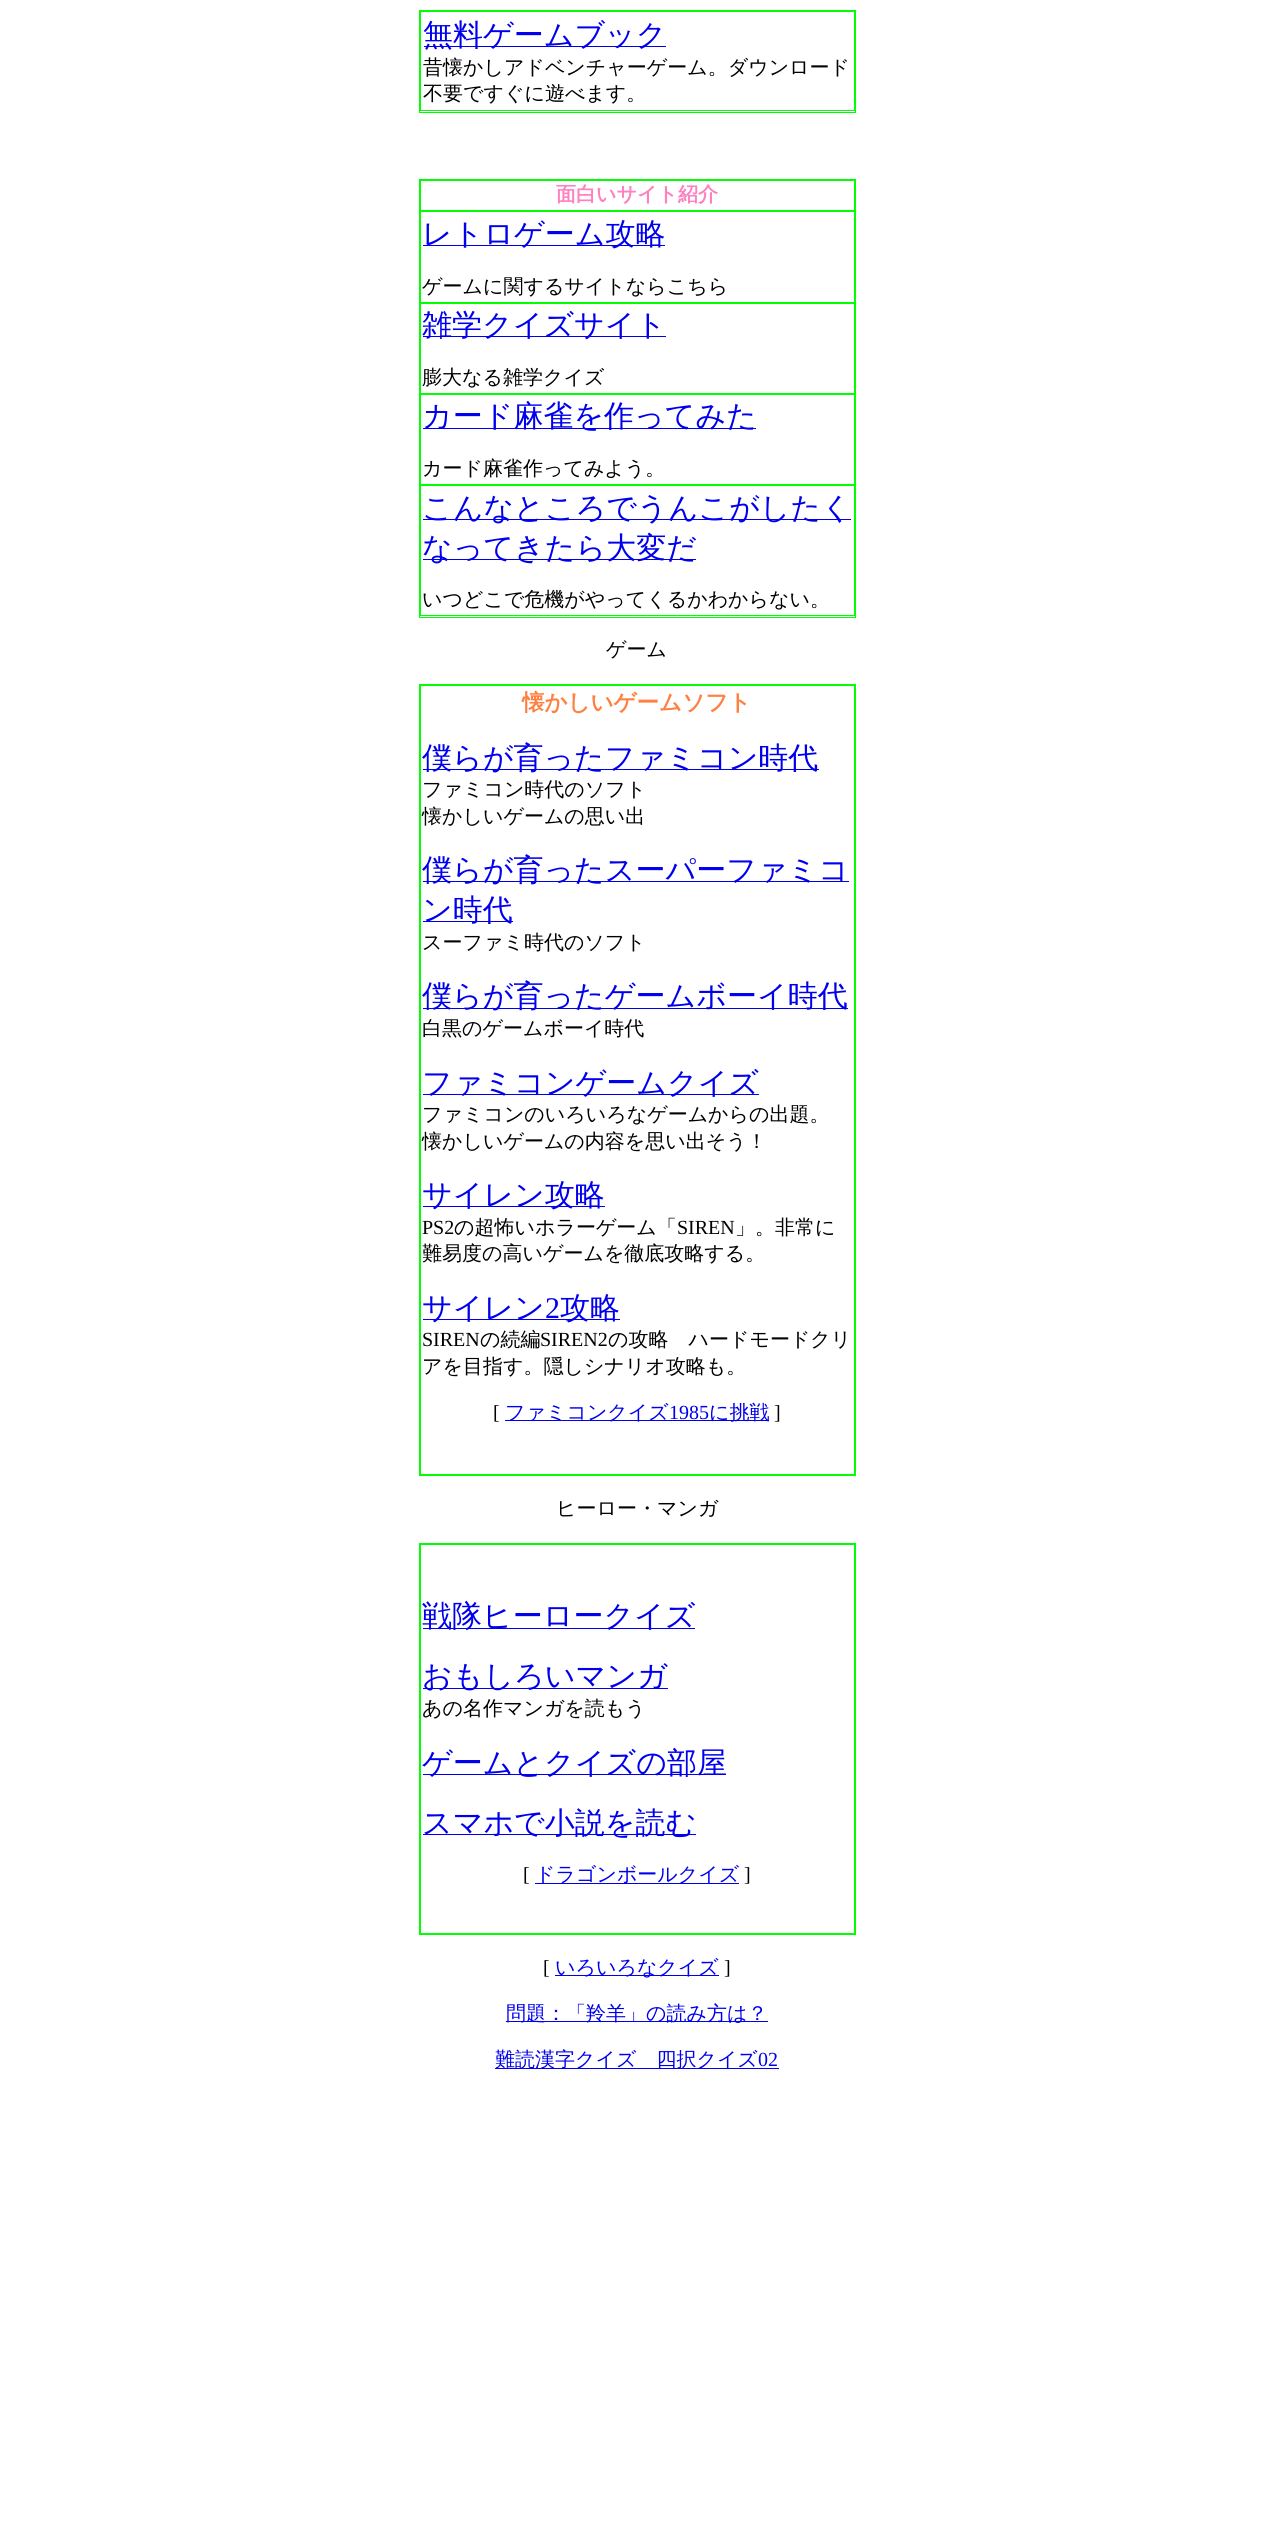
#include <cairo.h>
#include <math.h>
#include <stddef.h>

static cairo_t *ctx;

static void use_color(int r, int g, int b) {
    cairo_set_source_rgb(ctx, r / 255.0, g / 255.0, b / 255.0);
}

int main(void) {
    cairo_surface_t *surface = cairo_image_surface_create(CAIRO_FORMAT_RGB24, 1273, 2532);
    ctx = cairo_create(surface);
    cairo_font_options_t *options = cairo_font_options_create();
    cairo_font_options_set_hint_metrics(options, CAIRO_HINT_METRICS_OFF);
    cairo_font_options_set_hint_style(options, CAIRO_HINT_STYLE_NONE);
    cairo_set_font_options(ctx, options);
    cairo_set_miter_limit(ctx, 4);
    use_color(255, 255, 255);
    cairo_paint(ctx);
    cairo_rectangle(ctx, 419.5, 10.5, 436, 102);
    use_color(0, 255, 0);
    cairo_set_line_width(ctx, 1);
    cairo_stroke(ctx);
    cairo_rectangle(ctx, 420.5, 11.5, 434, 99);
    cairo_stroke(ctx);
    use_color(0, 0, 238);
    cairo_rectangle(ctx, 424, 46, 242, 1);
    cairo_fill(ctx);
    cairo_select_font_face(ctx, "WenQuanYi Zen Hei Medium", CAIRO_FONT_SLANT_NORMAL, CAIRO_FONT_WEIGHT_NORMAL);
    cairo_set_font_size(ctx, 30);
    cairo_move_to(ctx, 423, 45);
    cairo_show_text(ctx, "無料ゲームブック");
    cairo_set_font_size(ctx, 20);
    use_color(0, 0, 0);
    cairo_move_to(ctx, 423, 74);
    cairo_show_text(ctx, "昔懐かしアドベンチャーゲーム。ダウンロード");
    cairo_move_to(ctx, 423, 100);
    cairo_show_text(ctx, "不要ですぐに遊べます。");
    cairo_rectangle(ctx, 419.5, 179.5, 436, 438);
    use_color(0, 255, 0);
    cairo_stroke(ctx);
    cairo_rectangle(ctx, 420.5, 180.5, 434, 30);
    cairo_stroke(ctx);
    cairo_select_font_face(ctx, "WenQuanYi Zen Hei", CAIRO_FONT_SLANT_NORMAL, CAIRO_FONT_WEIGHT_BOLD);
    use_color(255, 128, 192);
    cairo_move_to(ctx, 556, 201);
    cairo_show_text(ctx, "面白いサイト紹介");
    cairo_rectangle(ctx, 420.5, 211.5, 434, 91);
    use_color(0, 255, 0);
    cairo_stroke(ctx);
    use_color(0, 0, 238);
    cairo_rectangle(ctx, 423, 245, 242, 1);
    cairo_fill(ctx);
    cairo_select_font_face(ctx, "WenQuanYi Zen Hei Medium", CAIRO_FONT_SLANT_NORMAL, CAIRO_FONT_WEIGHT_NORMAL);
    cairo_set_font_size(ctx, 30);
    cairo_move_to(ctx, 422, 244);
    cairo_show_text(ctx, "レトロゲーム攻略");
    cairo_set_font_size(ctx, 20);
    use_color(0, 0, 0);
    cairo_move_to(ctx, 422, 293);
    cairo_show_text(ctx, "ゲームに関するサイトならこちら");
    cairo_rectangle(ctx, 420.5, 303.5, 434, 90);
    use_color(0, 255, 0);
    cairo_stroke(ctx);
    use_color(0, 0, 238);
    cairo_rectangle(ctx, 423, 336, 243, 1);
    cairo_fill(ctx);
    cairo_set_font_size(ctx, 30);
    cairo_move_to(ctx, 422, 335);
    cairo_show_text(ctx, "雑学クイズサイト");
    cairo_set_font_size(ctx, 20);
    use_color(0, 0, 0);
    cairo_move_to(ctx, 422, 384);
    cairo_show_text(ctx, "膨大なる雑学クイズ");
    cairo_rectangle(ctx, 420.5, 394.5, 434, 90);
    use_color(0, 255, 0);
    cairo_stroke(ctx);
    use_color(0, 0, 238);
    cairo_rectangle(ctx, 423, 428, 333, 1);
    cairo_fill(ctx);
    cairo_set_font_size(ctx, 30);
    cairo_move_to(ctx, 422, 426);
    cairo_show_text(ctx, "カード麻雀を作ってみた");
    cairo_set_font_size(ctx, 20);
    use_color(0, 0, 0);
    cairo_move_to(ctx, 422, 475);
    cairo_show_text(ctx, "カード麻雀作ってみよう。");
    cairo_rectangle(ctx, 420.5, 485.5, 434, 130);
    use_color(0, 255, 0);
    cairo_stroke(ctx);
    use_color(0, 0, 238);
    cairo_rectangle(ctx, 423, 519, 428, 1);
    cairo_fill(ctx);
    cairo_set_font_size(ctx, 30);
    cairo_move_to(ctx, 422, 518);
    cairo_show_text(ctx, "こんなところでうんこがしたく");
    cairo_rectangle(ctx, 423, 559, 273, 1);
    cairo_fill(ctx);
    cairo_move_to(ctx, 422, 558);
    cairo_show_text(ctx, "なってきたら大変だ");
    cairo_set_font_size(ctx, 20);
    use_color(0, 0, 0);
    cairo_move_to(ctx, 422, 606);
    cairo_show_text(ctx, "いつどこで危機がやってくるかわからない。");
    cairo_move_to(ctx, 606, 656);
    cairo_show_text(ctx, "ゲーム");
    cairo_rectangle(ctx, 419.5, 684.5, 436, 791);
    use_color(0, 255, 0);
    cairo_stroke(ctx);
    cairo_rectangle(ctx, 420.5, 685.5, 434, 789);
    cairo_stroke(ctx);
    cairo_select_font_face(ctx, "WenQuanYi Zen Hei", CAIRO_FONT_SLANT_NORMAL, CAIRO_FONT_WEIGHT_BOLD);
    cairo_set_font_size(ctx, 22.5);
    use_color(255, 128, 64);
    cairo_move_to(ctx, 522, 710);
    cairo_show_text(ctx, "懐かしいゲームソフト");
    use_color(0, 0, 238);
    cairo_rectangle(ctx, 423, 769, 396, 1);
    cairo_fill(ctx);
    cairo_select_font_face(ctx, "WenQuanYi Zen Hei Medium", CAIRO_FONT_SLANT_NORMAL, CAIRO_FONT_WEIGHT_NORMAL);
    cairo_set_font_size(ctx, 30);
    cairo_move_to(ctx, 422, 768);
    cairo_show_text(ctx, "僕らが育ったファミコン時代");
    cairo_set_font_size(ctx, 20);
    use_color(0, 0, 0);
    cairo_move_to(ctx, 422, 796);
    cairo_show_text(ctx, "ファミコン時代のソフト");
    cairo_move_to(ctx, 422, 823);
    cairo_show_text(ctx, "懐かしいゲームの思い出");
    use_color(0, 0, 238);
    cairo_rectangle(ctx, 423, 881, 426, 1);
    cairo_fill(ctx);
    cairo_set_font_size(ctx, 30);
    cairo_move_to(ctx, 422, 880);
    cairo_show_text(ctx, "僕らが育ったスーパーファミコ");
    cairo_rectangle(ctx, 423, 921, 90, 1);
    cairo_fill(ctx);
    cairo_move_to(ctx, 422, 920);
    cairo_show_text(ctx, "ン時代");
    cairo_set_font_size(ctx, 20);
    use_color(0, 0, 0);
    cairo_move_to(ctx, 422, 949);
    cairo_show_text(ctx, "スーファミ時代のソフト");
    use_color(0, 0, 238);
    cairo_rectangle(ctx, 423, 1008, 425, 1);
    cairo_fill(ctx);
    cairo_set_font_size(ctx, 30);
    cairo_move_to(ctx, 422, 1006);
    cairo_show_text(ctx, "僕らが育ったゲームボーイ時代");
    cairo_set_font_size(ctx, 20);
    use_color(0, 0, 0);
    cairo_move_to(ctx, 422, 1035);
    cairo_show_text(ctx, "白黒のゲームボーイ時代");
    use_color(0, 0, 238);
    cairo_rectangle(ctx, 423, 1094, 336, 1);
    cairo_fill(ctx);
    cairo_set_font_size(ctx, 30);
    cairo_move_to(ctx, 422, 1093);
    cairo_show_text(ctx, "ファミコンゲームクイズ");
    cairo_set_font_size(ctx, 20);
    use_color(0, 0, 0);
    cairo_move_to(ctx, 422, 1121);
    cairo_show_text(ctx, "ファミコンのいろいろなゲームからの出題。");
    cairo_move_to(ctx, 422, 1148);
    cairo_show_text(ctx, "懐かしいゲームの内容を思い出そう！");
    use_color(0, 0, 238);
    cairo_rectangle(ctx, 423, 1206, 182, 1);
    cairo_fill(ctx);
    cairo_set_font_size(ctx, 30);
    cairo_move_to(ctx, 422, 1205);
    cairo_show_text(ctx, "サイレン攻略");
    cairo_select_font_face(ctx, "Liberation Serif", CAIRO_FONT_SLANT_NORMAL, CAIRO_FONT_WEIGHT_NORMAL);
    cairo_set_font_size(ctx, 20);
    use_color(0, 0, 0);
    cairo_move_to(ctx, 422, 1234);
    cairo_show_text(ctx, "PS2");
    cairo_select_font_face(ctx, "WenQuanYi Zen Hei Medium", CAIRO_FONT_SLANT_NORMAL, CAIRO_FONT_WEIGHT_NORMAL);
    cairo_move_to(ctx, 454, 1234);
    cairo_show_text(ctx, "の超怖いホラーゲーム「");
    cairo_select_font_face(ctx, "Liberation Serif", CAIRO_FONT_SLANT_NORMAL, CAIRO_FONT_WEIGHT_NORMAL);
    cairo_move_to(ctx, 677, 1234);
    cairo_show_text(ctx, "SIREN");
    cairo_select_font_face(ctx, "WenQuanYi Zen Hei Medium", CAIRO_FONT_SLANT_NORMAL, CAIRO_FONT_WEIGHT_NORMAL);
    cairo_move_to(ctx, 735, 1234);
    cairo_show_text(ctx, "」。非常に");
    cairo_move_to(ctx, 422, 1260);
    cairo_show_text(ctx, "難易度の高いゲームを徹底攻略する。");
    use_color(0, 0, 238);
    cairo_rectangle(ctx, 423, 1319, 197, 1);
    cairo_fill(ctx);
    cairo_set_font_size(ctx, 30);
    cairo_move_to(ctx, 422, 1318);
    cairo_show_text(ctx, "サイレン");
    cairo_select_font_face(ctx, "Liberation Serif", CAIRO_FONT_SLANT_NORMAL, CAIRO_FONT_WEIGHT_NORMAL);
    cairo_move_to(ctx, 545, 1318);
    cairo_show_text(ctx, "2");
    cairo_select_font_face(ctx, "WenQuanYi Zen Hei Medium", CAIRO_FONT_SLANT_NORMAL, CAIRO_FONT_WEIGHT_NORMAL);
    cairo_move_to(ctx, 560, 1318);
    cairo_show_text(ctx, "攻略");
    cairo_select_font_face(ctx, "Liberation Serif", CAIRO_FONT_SLANT_NORMAL, CAIRO_FONT_WEIGHT_NORMAL);
    cairo_set_font_size(ctx, 20);
    use_color(0, 0, 0);
    cairo_move_to(ctx, 422, 1346);
    cairo_show_text(ctx, "SIREN");
    cairo_select_font_face(ctx, "WenQuanYi Zen Hei Medium", CAIRO_FONT_SLANT_NORMAL, CAIRO_FONT_WEIGHT_NORMAL);
    cairo_move_to(ctx, 480, 1346);
    cairo_show_text(ctx, "の続編");
    cairo_select_font_face(ctx, "Liberation Serif", CAIRO_FONT_SLANT_NORMAL, CAIRO_FONT_WEIGHT_NORMAL);
    cairo_move_to(ctx, 540, 1346);
    cairo_show_text(ctx, "SIREN2");
    cairo_select_font_face(ctx, "WenQuanYi Zen Hei Medium", CAIRO_FONT_SLANT_NORMAL, CAIRO_FONT_WEIGHT_NORMAL);
    cairo_move_to(ctx, 608, 1346);
    cairo_show_text(ctx, "の攻略　ハードモードクリ");
    cairo_move_to(ctx, 422, 1373);
    cairo_show_text(ctx, "アを目指す。隠しシナリオ攻略も。");
    cairo_select_font_face(ctx, "Liberation Serif", CAIRO_FONT_SLANT_NORMAL, CAIRO_FONT_WEIGHT_NORMAL);
    cairo_move_to(ctx, 493, 1419);
    cairo_show_text(ctx, "[");
    use_color(0, 0, 238);
    cairo_rectangle(ctx, 505, 1420, 264, 1);
    cairo_fill(ctx);
    cairo_select_font_face(ctx, "WenQuanYi Zen Hei Medium", CAIRO_FONT_SLANT_NORMAL, CAIRO_FONT_WEIGHT_NORMAL);
    cairo_move_to(ctx, 505, 1419);
    cairo_show_text(ctx, "ファミコンクイズ");
    cairo_select_font_face(ctx, "Liberation Serif", CAIRO_FONT_SLANT_NORMAL, CAIRO_FONT_WEIGHT_NORMAL);
    cairo_move_to(ctx, 669, 1419);
    cairo_show_text(ctx, "1985");
    cairo_select_font_face(ctx, "WenQuanYi Zen Hei Medium", CAIRO_FONT_SLANT_NORMAL, CAIRO_FONT_WEIGHT_NORMAL);
    cairo_move_to(ctx, 709, 1419);
    cairo_show_text(ctx, "に挑戦");
    cairo_select_font_face(ctx, "Liberation Serif", CAIRO_FONT_SLANT_NORMAL, CAIRO_FONT_WEIGHT_NORMAL);
    use_color(0, 0, 0);
    cairo_move_to(ctx, 774, 1419);
    cairo_show_text(ctx, "]");
    cairo_select_font_face(ctx, "WenQuanYi Zen Hei Medium", CAIRO_FONT_SLANT_NORMAL, CAIRO_FONT_WEIGHT_NORMAL);
    cairo_move_to(ctx, 556, 1515);
    cairo_show_text(ctx, "ヒーロー・マンガ");
    cairo_rectangle(ctx, 419.5, 1543.5, 436, 391);
    use_color(0, 255, 0);
    cairo_stroke(ctx);
    cairo_rectangle(ctx, 420.5, 1544.5, 434, 389);
    cairo_stroke(ctx);
    use_color(0, 0, 238);
    cairo_rectangle(ctx, 423, 1628, 272, 1);
    cairo_fill(ctx);
    cairo_set_font_size(ctx, 30);
    cairo_move_to(ctx, 422, 1626);
    cairo_show_text(ctx, "戦隊ヒーロークイズ");
    cairo_rectangle(ctx, 423, 1688, 245, 1);
    cairo_fill(ctx);
    cairo_move_to(ctx, 422, 1686);
    cairo_show_text(ctx, "おもしろいマンガ");
    cairo_set_font_size(ctx, 20);
    use_color(0, 0, 0);
    cairo_move_to(ctx, 422, 1715);
    cairo_show_text(ctx, "あの名作マンガを読もう");
    use_color(0, 0, 238);
    cairo_rectangle(ctx, 423, 1774, 303, 1);
    cairo_fill(ctx);
    cairo_set_font_size(ctx, 30);
    cairo_move_to(ctx, 422, 1773);
    cairo_show_text(ctx, "ゲームとクイズの部屋");
    cairo_rectangle(ctx, 423, 1834, 273, 1);
    cairo_fill(ctx);
    cairo_move_to(ctx, 422, 1833);
    cairo_show_text(ctx, "スマホで小説を読む");
    cairo_select_font_face(ctx, "Liberation Serif", CAIRO_FONT_SLANT_NORMAL, CAIRO_FONT_WEIGHT_NORMAL);
    cairo_set_font_size(ctx, 20);
    use_color(0, 0, 0);
    cairo_move_to(ctx, 523, 1881);
    cairo_show_text(ctx, "[");
    use_color(0, 0, 238);
    cairo_rectangle(ctx, 535, 1883, 204, 1);
    cairo_fill(ctx);
    cairo_select_font_face(ctx, "WenQuanYi Zen Hei Medium", CAIRO_FONT_SLANT_NORMAL, CAIRO_FONT_WEIGHT_NORMAL);
    cairo_move_to(ctx, 535, 1881);
    cairo_show_text(ctx, "ドラゴンボールクイズ");
    cairo_select_font_face(ctx, "Liberation Serif", CAIRO_FONT_SLANT_NORMAL, CAIRO_FONT_WEIGHT_NORMAL);
    use_color(0, 0, 0);
    cairo_move_to(ctx, 744, 1881);
    cairo_show_text(ctx, "]");
    cairo_move_to(ctx, 543, 1974);
    cairo_show_text(ctx, "[");
    use_color(0, 0, 238);
    cairo_rectangle(ctx, 555, 1975, 164, 1);
    cairo_fill(ctx);
    cairo_select_font_face(ctx, "WenQuanYi Zen Hei Medium", CAIRO_FONT_SLANT_NORMAL, CAIRO_FONT_WEIGHT_NORMAL);
    cairo_move_to(ctx, 555, 1974);
    cairo_show_text(ctx, "いろいろなクイズ");
    cairo_select_font_face(ctx, "Liberation Serif", CAIRO_FONT_SLANT_NORMAL, CAIRO_FONT_WEIGHT_NORMAL);
    use_color(0, 0, 0);
    cairo_move_to(ctx, 724, 1974);
    cairo_show_text(ctx, "]");
    use_color(0, 0, 238);
    cairo_rectangle(ctx, 506, 2021, 262, 1);
    cairo_fill(ctx);
    cairo_select_font_face(ctx, "WenQuanYi Zen Hei Medium", CAIRO_FONT_SLANT_NORMAL, CAIRO_FONT_WEIGHT_NORMAL);
    cairo_move_to(ctx, 506, 2020);
    cairo_show_text(ctx, "問題：「羚羊」の読み方は？");
    cairo_rectangle(ctx, 495, 2068, 284, 1);
    cairo_fill(ctx);
    cairo_move_to(ctx, 495, 2066);
    cairo_show_text(ctx, "難読漢字クイズ　四択クイズ");
    cairo_select_font_face(ctx, "Liberation Serif", CAIRO_FONT_SLANT_NORMAL, CAIRO_FONT_WEIGHT_NORMAL);
    cairo_move_to(ctx, 758, 2066);
    cairo_show_text(ctx, "02");
    cairo_surface_write_to_png(surface, "result.png");
    cairo_font_options_destroy(options);
    cairo_destroy(ctx);
    cairo_surface_destroy(surface);
    return 0;
}
